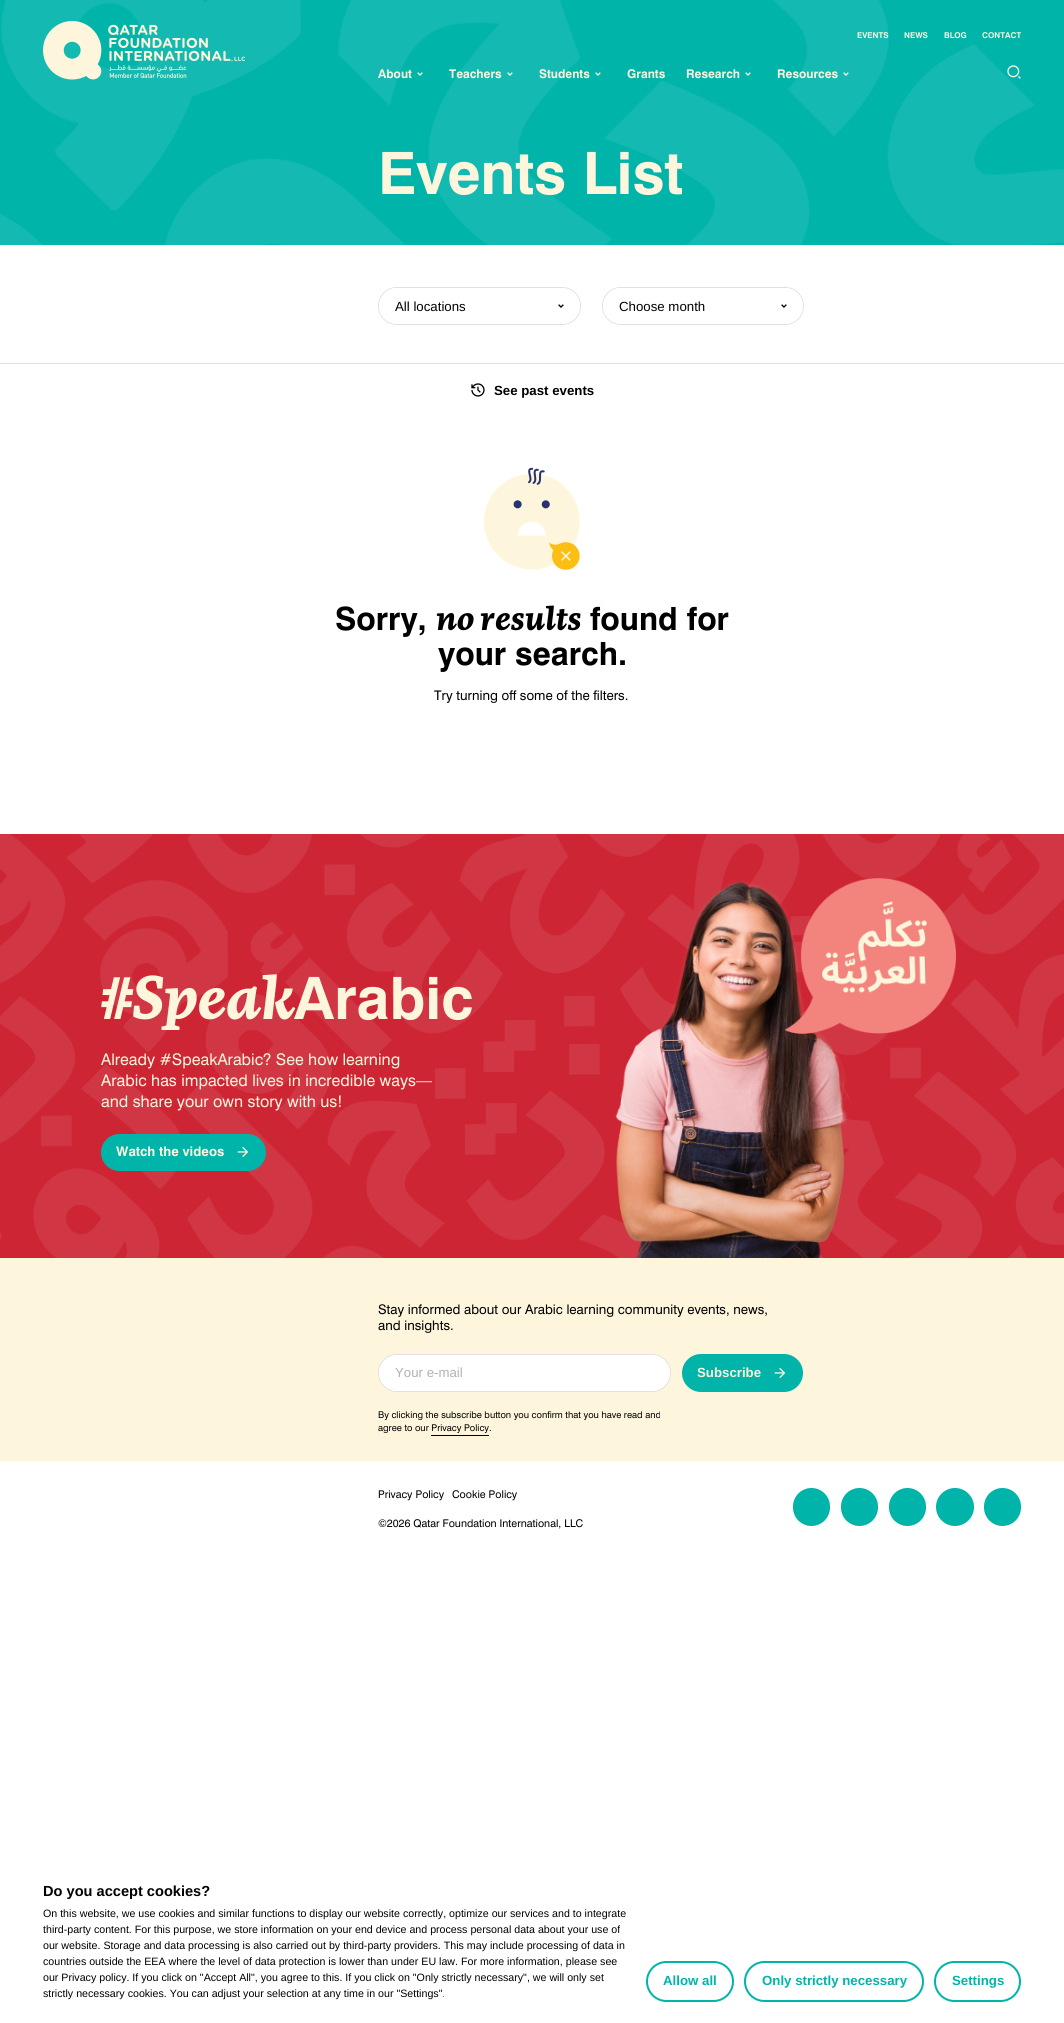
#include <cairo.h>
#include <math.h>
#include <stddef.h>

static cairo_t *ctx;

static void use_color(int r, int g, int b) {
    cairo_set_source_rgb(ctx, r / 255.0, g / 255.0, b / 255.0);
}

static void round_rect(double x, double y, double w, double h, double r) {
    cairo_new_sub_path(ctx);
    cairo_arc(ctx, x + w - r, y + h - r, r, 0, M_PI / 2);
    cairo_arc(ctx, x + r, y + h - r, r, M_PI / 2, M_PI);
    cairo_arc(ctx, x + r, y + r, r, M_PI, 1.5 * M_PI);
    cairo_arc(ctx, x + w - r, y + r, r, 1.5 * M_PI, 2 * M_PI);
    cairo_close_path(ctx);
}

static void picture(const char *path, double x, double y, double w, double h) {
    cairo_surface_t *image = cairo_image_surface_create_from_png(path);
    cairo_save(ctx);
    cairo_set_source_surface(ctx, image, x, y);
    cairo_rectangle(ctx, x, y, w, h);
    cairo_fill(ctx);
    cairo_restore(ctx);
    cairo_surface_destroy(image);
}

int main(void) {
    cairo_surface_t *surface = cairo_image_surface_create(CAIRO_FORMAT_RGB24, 1064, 2023);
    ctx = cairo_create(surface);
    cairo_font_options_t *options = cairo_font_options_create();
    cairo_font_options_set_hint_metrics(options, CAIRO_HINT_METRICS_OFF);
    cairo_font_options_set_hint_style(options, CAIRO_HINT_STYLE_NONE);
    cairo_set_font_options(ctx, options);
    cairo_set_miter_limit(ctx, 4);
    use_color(255, 255, 255);
    cairo_paint(ctx);
    picture("img5.png", 0, 0, 1064, 245);
    picture("img1.png", 43, 21, 202, 59);
    cairo_select_font_face(ctx, "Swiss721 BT", CAIRO_FONT_SLANT_NORMAL, CAIRO_FONT_WEIGHT_BOLD);
    cairo_set_font_size(ctx, 8);
    use_color(253, 246, 220);
    cairo_move_to(ctx, 857, 38);
    cairo_show_text(ctx, "EVENTS");
    cairo_move_to(ctx, 904, 38);
    cairo_show_text(ctx, "NEWS");
    cairo_move_to(ctx, 944, 38);
    cairo_show_text(ctx, "BLOG");
    cairo_move_to(ctx, 982, 38);
    cairo_show_text(ctx, "CONTACT");
    cairo_set_font_size(ctx, 12);
    cairo_move_to(ctx, 378, 78);
    cairo_show_text(ctx, "About");
    picture("img2.png", 417, 72, 6, 4);
    cairo_move_to(ctx, 449, 78);
    cairo_show_text(ctx, "Teachers");
    picture("img3.png", 507, 72, 6, 4);
    cairo_move_to(ctx, 539, 78);
    cairo_show_text(ctx, "Students");
    picture("img2.png", 595, 72, 6, 4);
    cairo_move_to(ctx, 627, 78);
    cairo_show_text(ctx, "Grants");
    cairo_move_to(ctx, 686, 78);
    cairo_show_text(ctx, "Research");
    picture("img2.png", 745, 72, 6, 4);
    cairo_move_to(ctx, 777, 78);
    cairo_show_text(ctx, "Resources");
    picture("img3.png", 843, 72, 6, 4);
    picture("img4.png", 1007, 65, 14, 14);
    cairo_set_font_size(ctx, 58.5);
    cairo_move_to(ctx, 378, 194);
    cairo_show_text(ctx, "Events List");
    round_rect(378.5, 287.5, 202, 37, 18.5);
    use_color(224, 224, 224);
    cairo_set_line_width(ctx, 1);
    cairo_stroke(ctx);
    use_color(255, 255, 255);
    round_rect(379, 288, 201, 36, 18);
    cairo_fill(ctx);
    cairo_select_font_face(ctx, "Liberation Sans", CAIRO_FONT_SLANT_NORMAL, CAIRO_FONT_WEIGHT_NORMAL);
    cairo_set_font_size(ctx, 13.25);
    use_color(0, 0, 0);
    cairo_move_to(ctx, 395, 311);
    cairo_show_text(ctx, "All locations");
    picture("img6.png", 558, 304, 6, 4);
    round_rect(602.5, 287.5, 201, 37, 18.5);
    use_color(224, 224, 224);
    cairo_stroke(ctx);
    use_color(255, 255, 255);
    round_rect(603, 288, 200, 36, 18);
    cairo_fill(ctx);
    use_color(0, 0, 0);
    cairo_move_to(ctx, 619, 311);
    cairo_show_text(ctx, "Choose month");
    picture("img6.png", 781, 304, 6, 4);
    use_color(224, 224, 224);
    cairo_rectangle(ctx, 0, 363, 1064, 1);
    cairo_fill(ctx);
    picture("img7.png", 471, 383, 14, 14);
    cairo_select_font_face(ctx, "Liberation Sans", CAIRO_FONT_SLANT_NORMAL, CAIRO_FONT_WEIGHT_BOLD);
    use_color(0, 0, 0);
    cairo_move_to(ctx, 494, 395);
    cairo_show_text(ctx, "See past events");
    picture("img8.png", 484, 467, 96, 103);
    cairo_select_font_face(ctx, "Swiss721 BT", CAIRO_FONT_SLANT_NORMAL, CAIRO_FONT_WEIGHT_BOLD);
    cairo_set_font_size(ctx, 32);
    cairo_move_to(ctx, 335, 630);
    cairo_show_text(ctx, "Sorry,");
    cairo_select_font_face(ctx, "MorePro", CAIRO_FONT_SLANT_ITALIC, CAIRO_FONT_WEIGHT_BOLD);
    cairo_move_to(ctx, 436, 630);
    cairo_show_text(ctx, "no results");
    cairo_select_font_face(ctx, "Swiss721 BT", CAIRO_FONT_SLANT_NORMAL, CAIRO_FONT_WEIGHT_BOLD);
    cairo_move_to(ctx, 590, 630);
    cairo_show_text(ctx, "found for");
    cairo_move_to(ctx, 438, 665);
    cairo_show_text(ctx, "your search.");
    cairo_select_font_face(ctx, "Swiss721 BT", CAIRO_FONT_SLANT_NORMAL, CAIRO_FONT_WEIGHT_NORMAL);
    cairo_set_font_size(ctx, 13.25);
    cairo_move_to(ctx, 434, 700);
    cairo_show_text(ctx, "Try turning off some of the filters.");
    picture("img9.png", 0, 834, 1064, 424);
    cairo_select_font_face(ctx, "MorePro", CAIRO_FONT_SLANT_ITALIC, CAIRO_FONT_WEIGHT_BOLD);
    cairo_set_font_size(ctx, 58.5);
    use_color(253, 246, 220);
    cairo_move_to(ctx, 101, 1019);
    cairo_show_text(ctx, "#Speak");
    cairo_select_font_face(ctx, "Swiss721 BT", CAIRO_FONT_SLANT_NORMAL, CAIRO_FONT_WEIGHT_BOLD);
    cairo_move_to(ctx, 294, 1019);
    cairo_show_text(ctx, "Arabic");
    cairo_select_font_face(ctx, "Swiss721 BT", CAIRO_FONT_SLANT_NORMAL, CAIRO_FONT_WEIGHT_NORMAL);
    cairo_set_font_size(ctx, 16);
    cairo_move_to(ctx, 101, 1065);
    cairo_show_text(ctx, "Already #SpeakArabic? See how learning");
    cairo_move_to(ctx, 101, 1086);
    cairo_show_text(ctx, "Arabic has impacted lives in incredible ways—");
    cairo_move_to(ctx, 101, 1107);
    cairo_show_text(ctx, "and share your own story with us!");
    use_color(0, 180, 170);
    round_rect(101, 1134, 165, 37, 18.5);
    cairo_fill(ctx);
    cairo_select_font_face(ctx, "Swiss721 BT", CAIRO_FONT_SLANT_NORMAL, CAIRO_FONT_WEIGHT_BOLD);
    cairo_set_font_size(ctx, 13.25);
    use_color(253, 246, 220);
    cairo_move_to(ctx, 116, 1156);
    cairo_show_text(ctx, "Watch the videos");
    picture("img10.png", 237, 1146, 12, 11);
    picture("img11.png", 615, 878, 341, 380);
    cairo_rectangle(ctx, 0, 1258, 1064, 203);
    cairo_fill(ctx);
    cairo_select_font_face(ctx, "Swiss721 BT", CAIRO_FONT_SLANT_NORMAL, CAIRO_FONT_WEIGHT_NORMAL);
    use_color(0, 0, 0);
    cairo_move_to(ctx, 378, 1314);
    cairo_show_text(ctx, "Stay informed about our Arabic learning community events, news,");
    cairo_move_to(ctx, 378, 1330);
    cairo_show_text(ctx, "and insights.");
    round_rect(378.5, 1354.5, 292, 37, 18.5);
    use_color(224, 224, 224);
    cairo_stroke(ctx);
    use_color(255, 255, 255);
    round_rect(379, 1355, 291, 36, 18);
    cairo_fill(ctx);
    cairo_select_font_face(ctx, "Liberation Sans", CAIRO_FONT_SLANT_NORMAL, CAIRO_FONT_WEIGHT_NORMAL);
    use_color(177, 177, 177);
    cairo_move_to(ctx, 395, 1377);
    cairo_show_text(ctx, "Your e-mail");
    use_color(0, 180, 170);
    round_rect(682, 1354, 121, 38, 19);
    cairo_fill(ctx);
    cairo_select_font_face(ctx, "Liberation Sans", CAIRO_FONT_SLANT_NORMAL, CAIRO_FONT_WEIGHT_BOLD);
    use_color(253, 246, 220);
    cairo_move_to(ctx, 697, 1377);
    cairo_show_text(ctx, "Subscribe");
    picture("img10.png", 774, 1367, 12, 11);
    cairo_select_font_face(ctx, "Swiss721 BT", CAIRO_FONT_SLANT_NORMAL, CAIRO_FONT_WEIGHT_NORMAL);
    cairo_set_font_size(ctx, 9.3);
    use_color(0, 0, 0);
    cairo_move_to(ctx, 378, 1418);
    cairo_show_text(ctx, "By clicking the subscribe button you confirm that you have read and");
    cairo_move_to(ctx, 378, 1431);
    cairo_show_text(ctx, "agree to our Privacy Policy");
    cairo_move_to(ctx, 489, 1431);
    cairo_show_text(ctx, ".");
    cairo_rectangle(ctx, 431, 1435, 58, 1);
    cairo_fill(ctx);
    cairo_set_font_size(ctx, 10.65);
    cairo_move_to(ctx, 378, 1498);
    cairo_show_text(ctx, "Privacy Policy");
    cairo_move_to(ctx, 452, 1498);
    cairo_show_text(ctx, "Cookie Policy");
    cairo_move_to(ctx, 378, 1527);
    cairo_show_text(ctx, "©2026 Qatar Foundation International, LLC");
    use_color(0, 180, 170);
    round_rect(793, 1488, 37, 38, 18.5);
    cairo_fill(ctx);
    round_rect(841, 1488, 37, 38, 18.5);
    cairo_fill(ctx);
    round_rect(889, 1488, 37, 38, 18.5);
    cairo_fill(ctx);
    cairo_arc(ctx, 955, 1507, 19, 0, 2 * M_PI);
    cairo_fill(ctx);
    round_rect(984, 1488, 37, 38, 18.5);
    cairo_fill(ctx);
    cairo_select_font_face(ctx, "Liberation Sans", CAIRO_FONT_SLANT_NORMAL, CAIRO_FONT_WEIGHT_BOLD);
    cairo_set_font_size(ctx, 14.6);
    use_color(0, 0, 0);
    cairo_move_to(ctx, 43, 1896);
    cairo_show_text(ctx, "Do you accept cookies?");
    cairo_select_font_face(ctx, "Liberation Sans", CAIRO_FONT_SLANT_NORMAL, CAIRO_FONT_WEIGHT_NORMAL);
    cairo_set_font_size(ctx, 10.65);
    cairo_move_to(ctx, 43, 1917);
    cairo_show_text(ctx, "On this website, we use cookies and similar functions to display our website correctly, optimize our services and to integrate");
    cairo_move_to(ctx, 43, 1933);
    cairo_show_text(ctx, "third-party content. For this purpose, we store information on your end device and process personal data about your use of");
    cairo_move_to(ctx, 43, 1949);
    cairo_show_text(ctx, "our website. Storage and data processing is also carried out by third-party providers. This may include processing of data in");
    cairo_move_to(ctx, 43, 1965);
    cairo_show_text(ctx, "countries outside the EEA where the level of data protection is lower than under EU law. For more information, please see");
    cairo_move_to(ctx, 43, 1981);
    cairo_show_text(ctx, "our Privacy policy. If you click on \"Accept All\", you agree to this. If you click on \"Only strictly necessary\", we will only set");
    cairo_move_to(ctx, 43, 1997);
    cairo_show_text(ctx, "strictly necessary cookies. You can adjust your selection at any time in our \"Settings\".");
    round_rect(647, 1962, 86, 39, 19.5);
    use_color(0, 180, 170);
    cairo_set_line_width(ctx, 2);
    cairo_stroke(ctx);
    cairo_select_font_face(ctx, "Liberation Sans", CAIRO_FONT_SLANT_NORMAL, CAIRO_FONT_WEIGHT_BOLD);
    cairo_set_font_size(ctx, 13.25);
    cairo_move_to(ctx, 663, 1985);
    cairo_show_text(ctx, "Allow all");
    round_rect(745, 1962, 178, 39, 19.5);
    cairo_stroke(ctx);
    cairo_move_to(ctx, 762, 1985);
    cairo_show_text(ctx, "Only strictly necessary");
    round_rect(935, 1962, 85, 39, 19.5);
    cairo_stroke(ctx);
    cairo_move_to(ctx, 952, 1985);
    cairo_show_text(ctx, "Settings");
    cairo_surface_write_to_png(surface, "result.png");
    cairo_font_options_destroy(options);
    cairo_destroy(ctx);
    cairo_surface_destroy(surface);
    return 0;
}
